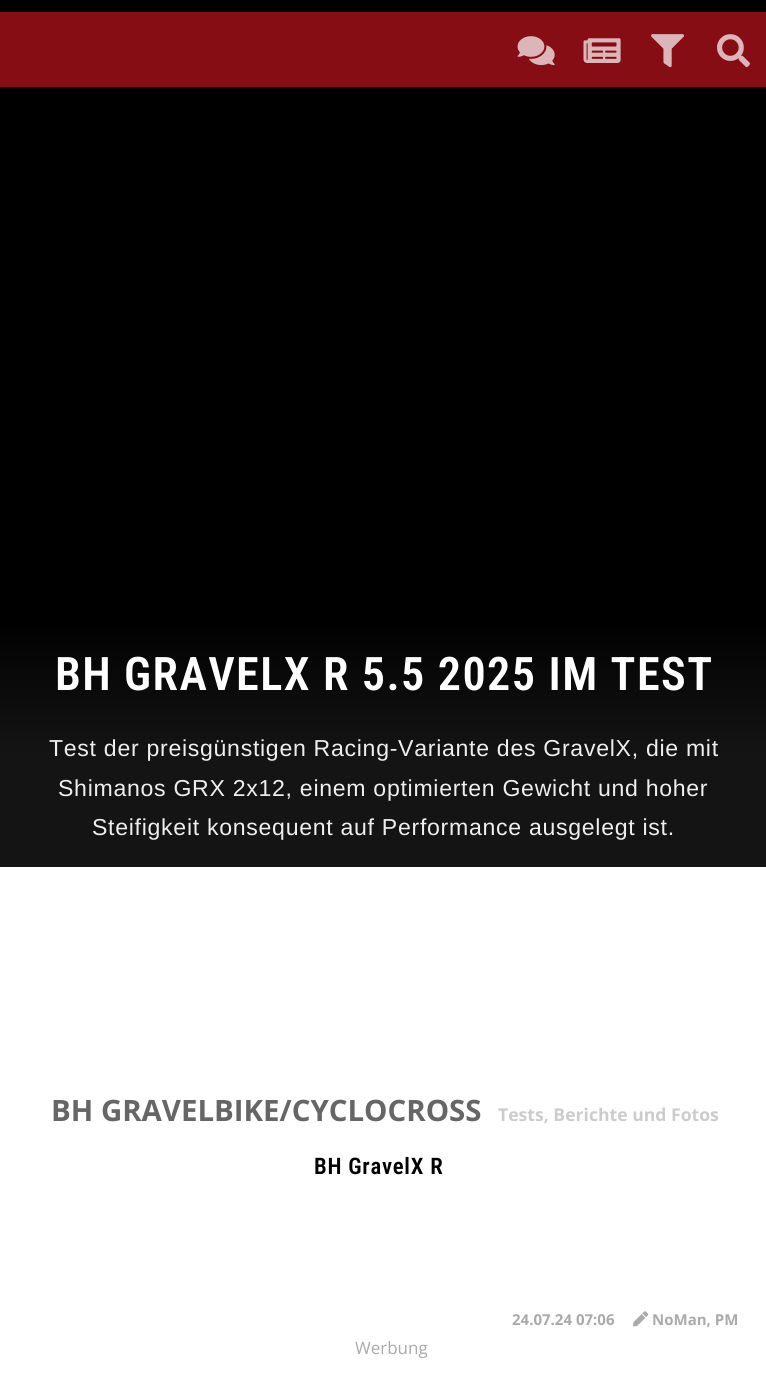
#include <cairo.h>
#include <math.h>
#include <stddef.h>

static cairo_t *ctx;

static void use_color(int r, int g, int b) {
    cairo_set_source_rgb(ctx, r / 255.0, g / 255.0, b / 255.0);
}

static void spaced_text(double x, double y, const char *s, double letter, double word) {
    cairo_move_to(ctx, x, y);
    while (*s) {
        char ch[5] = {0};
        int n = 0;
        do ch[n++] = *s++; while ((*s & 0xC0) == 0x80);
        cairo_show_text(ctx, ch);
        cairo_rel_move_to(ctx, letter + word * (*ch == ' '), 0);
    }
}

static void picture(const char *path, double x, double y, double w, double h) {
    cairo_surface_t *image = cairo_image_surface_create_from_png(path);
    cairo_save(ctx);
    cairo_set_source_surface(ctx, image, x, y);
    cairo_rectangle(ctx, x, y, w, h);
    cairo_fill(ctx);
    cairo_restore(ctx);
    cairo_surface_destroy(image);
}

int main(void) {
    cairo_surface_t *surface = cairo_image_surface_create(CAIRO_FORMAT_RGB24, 766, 1378);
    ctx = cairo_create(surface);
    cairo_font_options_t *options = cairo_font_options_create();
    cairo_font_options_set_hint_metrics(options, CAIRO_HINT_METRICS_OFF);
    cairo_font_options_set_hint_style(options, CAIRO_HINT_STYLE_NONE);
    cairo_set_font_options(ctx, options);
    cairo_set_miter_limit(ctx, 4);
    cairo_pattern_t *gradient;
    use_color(0, 0, 0);
    cairo_paint(ctx);
    use_color(135, 13, 20);
    cairo_rectangle(ctx, 0, 12, 766, 75);
    cairo_fill(ctx);
    picture("img1.png", 517, 36, 38, 30);
    picture("img2.png", 583, 38, 38, 25);
    picture("img3.png", 651, 34, 33, 34);
    picture("img4.png", 717, 34, 33, 34);
    use_color(255, 255, 255);
    cairo_rectangle(ctx, 0, 867, 766, 511);
    cairo_fill(ctx);
    gradient = cairo_pattern_create_linear(383, 612, 383, 867);
    cairo_pattern_add_color_stop_rgba(gradient, 0, 0, 0, 0, 1);
    cairo_pattern_add_color_stop_rgba(gradient, 0.56, 0.078, 0.078, 0.078, 1);
    cairo_set_source(ctx, gradient);
    cairo_pattern_destroy(gradient);
    cairo_rectangle(ctx, 0, 630, 766, 237);
    cairo_fill(ctx);
    cairo_select_font_face(ctx, "Roboto Condensed SemiBold", CAIRO_FONT_SLANT_NORMAL, CAIRO_FONT_WEIGHT_NORMAL);
    cairo_set_font_size(ctx, 46.25);
    use_color(255, 255, 255);
    spaced_text(55, 690, "BH GRAVELX R 5.5 2025 IM TEST", 1.4, 0);
    cairo_select_font_face(ctx, "Liberation Sans", CAIRO_FONT_SLANT_NORMAL, CAIRO_FONT_WEIGHT_NORMAL);
    cairo_set_font_size(ctx, 23.1);
    use_color(238, 238, 238);
    spaced_text(49, 756, "Test der preisgünstigen Racing-Variante des GravelX, die mit", 0.7, 0);
    spaced_text(58, 796, "Shimanos GRX 2x12, einem optimierten Gewicht und hoher", 0.7, 0);
    spaced_text(92, 835, "Steifigkeit konsequent auf Performance ausgelegt ist.", 0.7, 0);
    cairo_select_font_face(ctx, "Open Sans", CAIRO_FONT_SLANT_NORMAL, CAIRO_FONT_WEIGHT_BOLD);
    cairo_set_font_size(ctx, 29.4);
    use_color(102, 102, 102);
    cairo_move_to(ctx, 51, 1121);
    cairo_show_text(ctx, "BH GRAVELBIKE/CYCLOCROSS");
    cairo_set_font_size(ctx, 17.6);
    use_color(204, 204, 204);
    cairo_move_to(ctx, 498, 1121);
    cairo_show_text(ctx, "Tests, Berichte und Fotos");
    cairo_select_font_face(ctx, "Roboto Condensed SemiBold", CAIRO_FONT_SLANT_NORMAL, CAIRO_FONT_WEIGHT_NORMAL);
    cairo_set_font_size(ctx, 22.75);
    use_color(0, 0, 0);
    spaced_text(314, 1174, "BH GravelX R", 0.75, 0);
    cairo_select_font_face(ctx, "Open Sans", CAIRO_FONT_SLANT_NORMAL, CAIRO_FONT_WEIGHT_BOLD);
    cairo_set_font_size(ctx, 15);
    use_color(170, 170, 170);
    cairo_move_to(ctx, 512, 1325);
    cairo_show_text(ctx, "24.07.24 07:06");
    picture("img5.png", 633, 1311, 16, 16);
    cairo_move_to(ctx, 652, 1325);
    cairo_show_text(ctx, "NoMan, PM");
    cairo_select_font_face(ctx, "Open Sans", CAIRO_FONT_SLANT_NORMAL, CAIRO_FONT_WEIGHT_NORMAL);
    cairo_set_font_size(ctx, 17);
    cairo_move_to(ctx, 355, 1354);
    cairo_show_text(ctx, "Werbung");
    cairo_surface_write_to_png(surface, "result.png");
    cairo_font_options_destroy(options);
    cairo_destroy(ctx);
    cairo_surface_destroy(surface);
    return 0;
}
